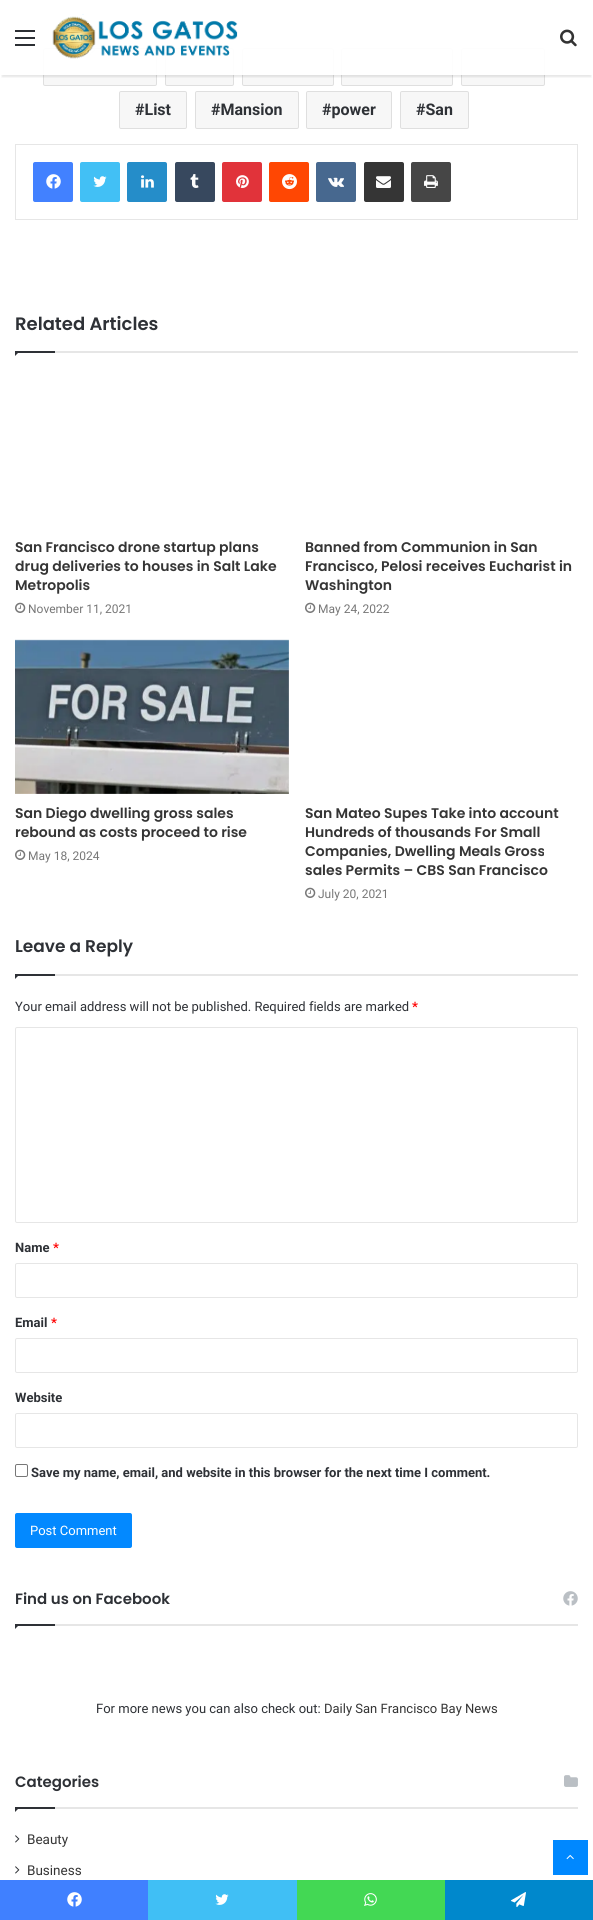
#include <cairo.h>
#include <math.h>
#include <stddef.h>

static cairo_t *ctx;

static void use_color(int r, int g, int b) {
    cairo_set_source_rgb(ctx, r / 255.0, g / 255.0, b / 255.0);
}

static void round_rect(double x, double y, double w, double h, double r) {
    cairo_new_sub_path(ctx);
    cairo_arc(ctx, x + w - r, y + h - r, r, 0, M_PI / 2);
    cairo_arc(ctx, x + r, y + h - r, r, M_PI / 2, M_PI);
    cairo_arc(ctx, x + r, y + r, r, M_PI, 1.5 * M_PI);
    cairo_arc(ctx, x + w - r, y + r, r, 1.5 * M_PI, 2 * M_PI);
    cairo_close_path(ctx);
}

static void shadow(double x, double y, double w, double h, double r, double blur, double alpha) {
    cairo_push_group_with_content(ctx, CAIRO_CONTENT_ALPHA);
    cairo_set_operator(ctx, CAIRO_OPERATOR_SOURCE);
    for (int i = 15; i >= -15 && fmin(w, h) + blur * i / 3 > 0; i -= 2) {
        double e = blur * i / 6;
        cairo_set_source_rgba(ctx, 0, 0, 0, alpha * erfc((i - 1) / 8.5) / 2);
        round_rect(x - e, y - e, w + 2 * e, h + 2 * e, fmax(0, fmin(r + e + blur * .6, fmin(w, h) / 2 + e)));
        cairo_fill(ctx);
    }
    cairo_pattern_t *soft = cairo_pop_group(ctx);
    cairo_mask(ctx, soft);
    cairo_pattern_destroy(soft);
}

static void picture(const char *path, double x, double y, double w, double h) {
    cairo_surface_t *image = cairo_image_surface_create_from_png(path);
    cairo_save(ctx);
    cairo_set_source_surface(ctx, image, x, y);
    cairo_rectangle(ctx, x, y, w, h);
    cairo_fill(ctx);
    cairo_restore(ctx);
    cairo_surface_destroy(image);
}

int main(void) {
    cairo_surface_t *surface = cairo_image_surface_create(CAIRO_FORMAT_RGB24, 593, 1920);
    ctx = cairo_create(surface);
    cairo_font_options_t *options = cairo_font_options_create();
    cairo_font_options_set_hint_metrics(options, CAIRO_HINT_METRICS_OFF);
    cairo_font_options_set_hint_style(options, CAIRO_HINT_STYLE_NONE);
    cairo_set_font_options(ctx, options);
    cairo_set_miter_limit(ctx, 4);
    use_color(255, 255, 255);
    cairo_paint(ctx);
    use_color(247, 247, 247);
    round_rect(43.5, 48.5, 113, 37, 1.5);
    cairo_fill_preserve(ctx);
    use_color(223, 223, 223);
    cairo_set_line_width(ctx, 1);
    cairo_stroke(ctx);
    use_color(247, 247, 247);
    round_rect(165.5, 48.5, 68, 37, 1.5);
    cairo_fill_preserve(ctx);
    use_color(223, 223, 223);
    cairo_stroke(ctx);
    use_color(247, 247, 247);
    round_rect(242.5, 48.5, 91, 37, 1.5);
    cairo_fill_preserve(ctx);
    use_color(223, 223, 223);
    cairo_stroke(ctx);
    use_color(247, 247, 247);
    round_rect(341.5, 48.5, 111, 37, 1.5);
    cairo_fill_preserve(ctx);
    use_color(223, 223, 223);
    cairo_stroke(ctx);
    use_color(247, 247, 247);
    round_rect(461.5, 48.5, 83, 37, 1.5);
    cairo_fill_preserve(ctx);
    use_color(223, 223, 223);
    cairo_stroke(ctx);
    cairo_save(ctx);
    cairo_rectangle(ctx, 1, 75, 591, 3);
    cairo_clip(ctx);
    use_color(0, 0, 0);
    shadow(2, 6, 589, 71, 0, 1, 0.1);
    cairo_restore(ctx);
    cairo_set_source_rgba(ctx, 1, 1, 1, 0.95);
    cairo_rectangle(ctx, 43, 48, 502, 27);
    cairo_fill(ctx);
    use_color(44, 47, 52);
    cairo_rectangle(ctx, 15, 37, 20, 2);
    cairo_fill(ctx);
    cairo_rectangle(ctx, 15, 30, 20, 2);
    cairo_fill(ctx);
    cairo_rectangle(ctx, 15, 44, 20, 2);
    cairo_fill(ctx);
    picture("img1.png", 52, 14, 186, 45);
    picture("img2.png", 560, 29, 17, 18);
    use_color(247, 247, 247);
    round_rect(119.5, 91.5, 67, 37, 1.5);
    cairo_fill_preserve(ctx);
    use_color(223, 223, 223);
    cairo_stroke(ctx);
    cairo_select_font_face(ctx, "Roboto", CAIRO_FONT_SLANT_NORMAL, CAIRO_FONT_WEIGHT_BOLD);
    cairo_set_font_size(ctx, 16);
    use_color(46, 49, 54);
    cairo_move_to(ctx, 135, 115);
    cairo_show_text(ctx, "#List");
    use_color(247, 247, 247);
    round_rect(195.5, 91.5, 103, 37, 1.5);
    cairo_fill_preserve(ctx);
    use_color(223, 223, 223);
    cairo_stroke(ctx);
    use_color(46, 49, 54);
    cairo_move_to(ctx, 211, 115);
    cairo_show_text(ctx, "#Mansion");
    use_color(247, 247, 247);
    round_rect(306.5, 91.5, 85, 37, 1.5);
    cairo_fill_preserve(ctx);
    use_color(223, 223, 223);
    cairo_stroke(ctx);
    use_color(46, 49, 54);
    cairo_move_to(ctx, 322, 115);
    cairo_show_text(ctx, "#power");
    use_color(247, 247, 247);
    round_rect(400.5, 91.5, 68, 37, 1.5);
    cairo_fill_preserve(ctx);
    use_color(223, 223, 223);
    cairo_stroke(ctx);
    use_color(46, 49, 54);
    cairo_move_to(ctx, 416, 115);
    cairo_show_text(ctx, "#San");
    cairo_rectangle(ctx, 15.5, 144.5, 562, 75);
    use_color(230, 230, 230);
    cairo_stroke(ctx);
    use_color(66, 129, 255);
    round_rect(33, 162, 40, 40, 2);
    cairo_fill(ctx);
    picture("img3.png", 46, 174, 15, 15);
    use_color(66, 192, 245);
    round_rect(80, 162, 40, 40, 2);
    cairo_fill(ctx);
    picture("img4.png", 93, 176, 14, 11);
    use_color(37, 141, 201);
    round_rect(127, 162, 40, 40, 2);
    cairo_fill(ctx);
    picture("img5.png", 141, 175, 13, 13);
    use_color(55, 72, 94);
    round_rect(175, 162, 40, 40, 2);
    cairo_fill(ctx);
    picture("img6.png", 190, 174, 9, 14);
    use_color(225, 51, 58);
    round_rect(222, 162, 40, 40, 2);
    cairo_fill(ctx);
    picture("img7.png", 236, 175, 13, 13);
    use_color(255, 71, 3);
    round_rect(269, 162, 40, 40, 2);
    cairo_fill(ctx);
    picture("img8.png", 282, 174, 15, 16);
    use_color(71, 104, 143);
    round_rect(316, 162, 40, 40, 2);
    cairo_fill(ctx);
    picture("img9.png", 328, 177, 16, 10);
    use_color(53, 53, 53);
    round_rect(364, 162, 40, 40, 2);
    cairo_fill(ctx);
    picture("img10.png", 376, 176, 15, 12);
    use_color(70, 70, 70);
    round_rect(411, 162, 40, 40, 2);
    cairo_fill(ctx);
    picture("img11.png", 424, 175, 14, 13);
    use_color(230, 230, 230);
    cairo_rectangle(ctx, 55, 351, 523, 2);
    cairo_fill(ctx);
    cairo_select_font_face(ctx, "Poppins SemiBold", CAIRO_FONT_SLANT_NORMAL, CAIRO_FONT_WEIGHT_NORMAL);
    cairo_set_font_size(ctx, 18);
    use_color(46, 49, 54);
    cairo_move_to(ctx, 15, 330);
    cairo_show_text(ctx, "Related Articles");
    cairo_new_path(ctx);
    cairo_move_to(ctx, 15, 351);
    cairo_line_to(ctx, 20, 351);
    cairo_line_to(ctx, 15, 356);
    cairo_close_path(ctx);
    cairo_fill(ctx);
    cairo_rectangle(ctx, 15, 351, 40, 2);
    cairo_fill(ctx);
    cairo_set_font_size(ctx, 14);
    use_color(53, 53, 53);
    cairo_move_to(ctx, 15, 552);
    cairo_show_text(ctx, "San Francisco drone startup plans");
    cairo_move_to(ctx, 15, 571);
    cairo_show_text(ctx, "drug deliveries to houses in Salt Lake");
    cairo_move_to(ctx, 15, 590);
    cairo_show_text(ctx, "Metropolis");
    picture("img12.png", 15, 602, 11, 11);
    cairo_select_font_face(ctx, "Roboto", CAIRO_FONT_SLANT_NORMAL, CAIRO_FONT_WEIGHT_NORMAL);
    cairo_set_font_size(ctx, 12);
    use_color(119, 119, 119);
    cairo_move_to(ctx, 28, 613);
    cairo_show_text(ctx, "November 11, 2021");
    cairo_select_font_face(ctx, "Poppins SemiBold", CAIRO_FONT_SLANT_NORMAL, CAIRO_FONT_WEIGHT_NORMAL);
    cairo_set_font_size(ctx, 14);
    use_color(53, 53, 53);
    cairo_move_to(ctx, 305, 552);
    cairo_show_text(ctx, "Banned from Communion in San");
    cairo_move_to(ctx, 305, 571);
    cairo_show_text(ctx, "Francisco, Pelosi receives Eucharist in");
    cairo_move_to(ctx, 305, 590);
    cairo_show_text(ctx, "Washington");
    picture("img12.png", 305, 602, 11, 11);
    cairo_select_font_face(ctx, "Roboto", CAIRO_FONT_SLANT_NORMAL, CAIRO_FONT_WEIGHT_NORMAL);
    cairo_set_font_size(ctx, 12);
    use_color(119, 119, 119);
    cairo_move_to(ctx, 318, 613);
    cairo_show_text(ctx, "May 24, 2022");
    picture("img13.png", 15, 639, 274, 155);
    cairo_select_font_face(ctx, "Poppins SemiBold", CAIRO_FONT_SLANT_NORMAL, CAIRO_FONT_WEIGHT_NORMAL);
    cairo_set_font_size(ctx, 14);
    use_color(53, 53, 53);
    cairo_move_to(ctx, 15, 818);
    cairo_show_text(ctx, "San Diego dwelling gross sales");
    cairo_move_to(ctx, 15, 837);
    cairo_show_text(ctx, "rebound as costs proceed to rise");
    picture("img12.png", 15, 849, 11, 11);
    cairo_select_font_face(ctx, "Roboto", CAIRO_FONT_SLANT_NORMAL, CAIRO_FONT_WEIGHT_NORMAL);
    cairo_set_font_size(ctx, 12);
    use_color(119, 119, 119);
    cairo_move_to(ctx, 28, 860);
    cairo_show_text(ctx, "May 18, 2024");
    cairo_select_font_face(ctx, "Poppins SemiBold", CAIRO_FONT_SLANT_NORMAL, CAIRO_FONT_WEIGHT_NORMAL);
    cairo_set_font_size(ctx, 14);
    use_color(53, 53, 53);
    cairo_move_to(ctx, 305, 818);
    cairo_show_text(ctx, "San Mateo Supes Take into account");
    cairo_move_to(ctx, 305, 837);
    cairo_show_text(ctx, "Hundreds of thousands For Small");
    cairo_move_to(ctx, 305, 856);
    cairo_show_text(ctx, "Companies, Dwelling Meals Gross");
    cairo_move_to(ctx, 305, 875);
    cairo_show_text(ctx, "sales Permits – CBS San Francisco");
    picture("img12.png", 305, 887, 11, 11);
    cairo_select_font_face(ctx, "Roboto", CAIRO_FONT_SLANT_NORMAL, CAIRO_FONT_WEIGHT_NORMAL);
    cairo_set_font_size(ctx, 12);
    use_color(119, 119, 119);
    cairo_move_to(ctx, 318, 898);
    cairo_show_text(ctx, "July 20, 2021");
    use_color(230, 230, 230);
    cairo_rectangle(ctx, 55, 974, 523, 2);
    cairo_fill(ctx);
    cairo_select_font_face(ctx, "Poppins SemiBold", CAIRO_FONT_SLANT_NORMAL, CAIRO_FONT_WEIGHT_NORMAL);
    cairo_set_font_size(ctx, 17);
    use_color(46, 49, 54);
    cairo_move_to(ctx, 15, 952);
    cairo_show_text(ctx, "Leave a Reply");
    cairo_new_path(ctx);
    cairo_move_to(ctx, 15, 974);
    cairo_line_to(ctx, 20, 974);
    cairo_line_to(ctx, 15, 979);
    cairo_close_path(ctx);
    cairo_fill(ctx);
    cairo_rectangle(ctx, 15, 974, 40, 2);
    cairo_fill(ctx);
    cairo_select_font_face(ctx, "Roboto", CAIRO_FONT_SLANT_NORMAL, CAIRO_FONT_WEIGHT_NORMAL);
    cairo_set_font_size(ctx, 13);
    cairo_move_to(ctx, 15, 1011);
    cairo_show_text(ctx, "Your email address will not be published. Required fields are marked");
    cairo_select_font_face(ctx, "Roboto", CAIRO_FONT_SLANT_NORMAL, CAIRO_FONT_WEIGHT_BOLD);
    use_color(255, 3, 3);
    cairo_move_to(ctx, 412, 1011);
    cairo_show_text(ctx, "*");
    round_rect(15.5, 1027.5, 562, 195, 1.5);
    use_color(230, 230, 230);
    cairo_stroke(ctx);
    use_color(46, 49, 54);
    cairo_move_to(ctx, 15, 1252);
    cairo_show_text(ctx, "Name");
    use_color(255, 3, 3);
    cairo_move_to(ctx, 53, 1252);
    cairo_show_text(ctx, "*");
    round_rect(15.5, 1263.5, 562, 34, 1.5);
    use_color(230, 230, 230);
    cairo_stroke(ctx);
    use_color(46, 49, 54);
    cairo_move_to(ctx, 15, 1327);
    cairo_show_text(ctx, "Email");
    use_color(255, 3, 3);
    cairo_move_to(ctx, 51, 1327);
    cairo_show_text(ctx, "*");
    round_rect(15.5, 1338.5, 562, 34, 1.5);
    use_color(230, 230, 230);
    cairo_stroke(ctx);
    use_color(46, 49, 54);
    cairo_move_to(ctx, 15, 1402);
    cairo_show_text(ctx, "Website");
    round_rect(15.5, 1413.5, 562, 34, 1.5);
    use_color(230, 230, 230);
    cairo_stroke(ctx);
    round_rect(15.5, 1464.5, 12, 12, 1.5);
    use_color(119, 119, 119);
    cairo_stroke(ctx);
    use_color(46, 49, 54);
    cairo_move_to(ctx, 31, 1477);
    cairo_show_text(ctx, "Save my name, email, and website in this browser for the next time I comment.");
    use_color(3, 137, 255);
    round_rect(15, 1513, 117, 35, 2);
    cairo_fill(ctx);
    cairo_select_font_face(ctx, "Roboto", CAIRO_FONT_SLANT_NORMAL, CAIRO_FONT_WEIGHT_NORMAL);
    use_color(255, 255, 255);
    cairo_move_to(ctx, 30, 1535);
    cairo_show_text(ctx, "Post Comment");
    use_color(230, 230, 230);
    cairo_rectangle(ctx, 55, 1624, 523, 2);
    cairo_fill(ctx);
    cairo_select_font_face(ctx, "Poppins SemiBold", CAIRO_FONT_SLANT_NORMAL, CAIRO_FONT_WEIGHT_NORMAL);
    cairo_set_font_size(ctx, 15);
    use_color(46, 49, 54);
    cairo_move_to(ctx, 15, 1604);
    cairo_show_text(ctx, "Find us on Facebook");
    picture("img14.png", 563, 1591, 15, 15);
    cairo_new_path(ctx);
    cairo_move_to(ctx, 15, 1624);
    cairo_line_to(ctx, 20, 1624);
    cairo_line_to(ctx, 15, 1629);
    cairo_close_path(ctx);
    cairo_fill(ctx);
    cairo_rectangle(ctx, 15, 1624, 40, 2);
    cairo_fill(ctx);
    cairo_select_font_face(ctx, "Roboto", CAIRO_FONT_SLANT_NORMAL, CAIRO_FONT_WEIGHT_NORMAL);
    cairo_set_font_size(ctx, 13);
    cairo_move_to(ctx, 96, 1713);
    cairo_show_text(ctx, "For more news you can also check out:");
    use_color(53, 53, 53);
    cairo_move_to(ctx, 324, 1713);
    cairo_show_text(ctx, "Daily San Francisco Bay News");
    use_color(230, 230, 230);
    cairo_rectangle(ctx, 55, 1807, 523, 2);
    cairo_fill(ctx);
    cairo_select_font_face(ctx, "Poppins SemiBold", CAIRO_FONT_SLANT_NORMAL, CAIRO_FONT_WEIGHT_NORMAL);
    cairo_set_font_size(ctx, 15);
    use_color(46, 49, 54);
    cairo_move_to(ctx, 15, 1787);
    cairo_show_text(ctx, "Categories");
    picture("img15.png", 564, 1775, 14, 12);
    cairo_new_path(ctx);
    cairo_move_to(ctx, 15, 1807);
    cairo_line_to(ctx, 20, 1807);
    cairo_line_to(ctx, 15, 1812);
    cairo_close_path(ctx);
    cairo_fill(ctx);
    cairo_rectangle(ctx, 15, 1807, 40, 2);
    cairo_fill(ctx);
    picture("img16.png", 15, 1835, 5, 8);
    cairo_select_font_face(ctx, "Roboto", CAIRO_FONT_SLANT_NORMAL, CAIRO_FONT_WEIGHT_NORMAL);
    cairo_set_font_size(ctx, 13.5);
    use_color(53, 53, 53);
    cairo_move_to(ctx, 27, 1844);
    cairo_show_text(ctx, "Beauty");
    picture("img16.png", 15, 1866, 5, 8);
    cairo_move_to(ctx, 27, 1875);
    cairo_show_text(ctx, "Business");
    use_color(0, 136, 255);
    cairo_rectangle(ctx, 553, 1840, 35, 35);
    cairo_fill(ctx);
    picture("img17.png", 566, 1854, 8, 6);
    use_color(64, 128, 255);
    cairo_rectangle(ctx, 0, 1880, 148, 40);
    cairo_fill(ctx);
    picture("img18.png", 67, 1892, 15, 15);
    use_color(64, 191, 245);
    cairo_rectangle(ctx, 148, 1880, 149, 40);
    cairo_fill(ctx);
    picture("img19.png", 215, 1894, 14, 11);
    use_color(67, 216, 84);
    cairo_rectangle(ctx, 297, 1880, 148, 40);
    cairo_fill(ctx);
    picture("img20.png", 364, 1893, 13, 13);
    use_color(0, 136, 204);
    cairo_rectangle(ctx, 445, 1880, 148, 40);
    cairo_fill(ctx);
    picture("img21.png", 511, 1892, 15, 15);
    cairo_surface_write_to_png(surface, "result.png");
    cairo_font_options_destroy(options);
    cairo_destroy(ctx);
    cairo_surface_destroy(surface);
    return 0;
}
